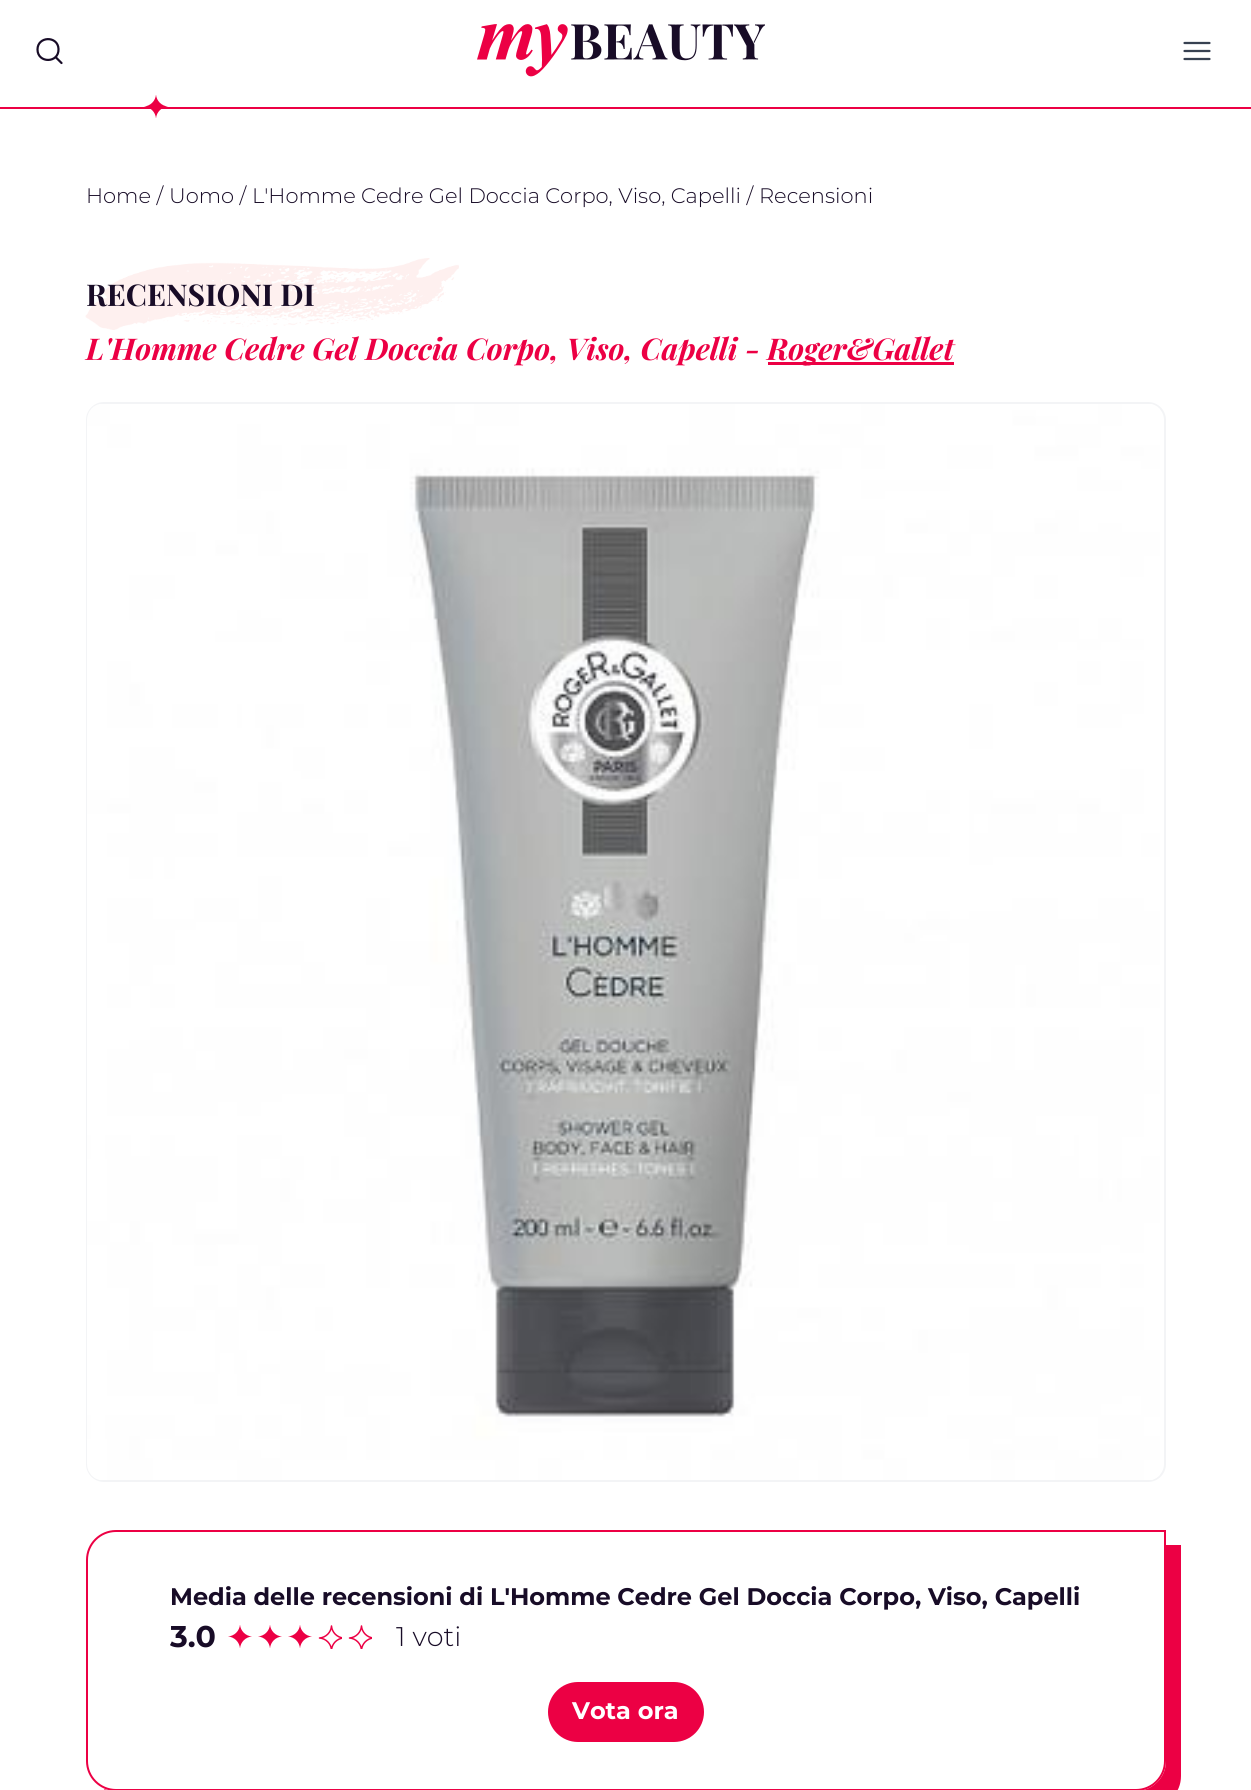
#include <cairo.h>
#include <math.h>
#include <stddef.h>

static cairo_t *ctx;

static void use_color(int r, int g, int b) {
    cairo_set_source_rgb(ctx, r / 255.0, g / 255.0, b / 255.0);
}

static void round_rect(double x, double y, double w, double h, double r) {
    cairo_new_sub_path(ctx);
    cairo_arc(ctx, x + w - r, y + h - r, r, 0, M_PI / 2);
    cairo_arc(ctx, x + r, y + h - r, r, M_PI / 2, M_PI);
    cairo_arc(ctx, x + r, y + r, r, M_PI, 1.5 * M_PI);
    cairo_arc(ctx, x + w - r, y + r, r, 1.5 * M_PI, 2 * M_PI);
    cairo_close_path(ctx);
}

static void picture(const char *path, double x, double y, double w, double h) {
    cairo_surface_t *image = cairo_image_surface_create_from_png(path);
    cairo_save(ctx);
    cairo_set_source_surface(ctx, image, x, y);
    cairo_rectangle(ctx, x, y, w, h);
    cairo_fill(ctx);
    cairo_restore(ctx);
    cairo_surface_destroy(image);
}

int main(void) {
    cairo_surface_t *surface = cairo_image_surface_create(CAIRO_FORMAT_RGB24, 1251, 1790);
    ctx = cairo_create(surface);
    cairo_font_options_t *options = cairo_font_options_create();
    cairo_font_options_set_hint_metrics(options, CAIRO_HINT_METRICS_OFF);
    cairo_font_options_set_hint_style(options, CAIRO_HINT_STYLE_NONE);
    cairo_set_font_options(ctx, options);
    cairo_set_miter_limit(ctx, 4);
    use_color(255, 255, 255);
    cairo_paint(ctx);
    use_color(236, 0, 68);
    cairo_rectangle(ctx, 0, 107, 1251, 2);
    cairo_fill(ctx);
    cairo_new_path(ctx);
    cairo_move_to(ctx, 37.5, 49.5);
    cairo_curve_to(ctx, 37.5, 36, 58, 35.5, 58.5, 49);
    cairo_curve_to(ctx, 59, 63.5, 37.5, 63.5, 37.5, 49.5);
    cairo_close_path(ctx);
    cairo_move_to(ctx, 55.5, 57);
    cairo_line_to(ctx, 61.5, 63);
    use_color(24, 12, 39);
    cairo_set_line_width(ctx, 2.2);
    cairo_set_line_cap(ctx, CAIRO_LINE_CAP_ROUND);
    cairo_set_line_join(ctx, CAIRO_LINE_JOIN_ROUND);
    cairo_stroke(ctx);
    picture("img1.png", 477, 24, 288, 53);
    cairo_new_path(ctx);
    cairo_move_to(ctx, 1184.5, 43);
    cairo_line_to(ctx, 1209.5, 43);
    cairo_move_to(ctx, 1184.5, 51);
    cairo_line_to(ctx, 1209.5, 51);
    cairo_move_to(ctx, 1184.5, 59);
    cairo_line_to(ctx, 1209.5, 59);
    use_color(55, 65, 81);
    cairo_stroke(ctx);
    picture("img2.png", 144, 95, 24, 23);
    cairo_select_font_face(ctx, "Montserrat Light", CAIRO_FONT_SLANT_NORMAL, CAIRO_FONT_WEIGHT_NORMAL);
    cairo_set_font_size(ctx, 21);
    use_color(24, 12, 39);
    cairo_move_to(ctx, 86, 203);
    cairo_show_text(ctx, "Home /");
    cairo_move_to(ctx, 169, 203);
    cairo_show_text(ctx, "Uomo /");
    cairo_move_to(ctx, 252, 203);
    cairo_show_text(ctx, "L'Homme Cedre Gel Doccia Corpo, Viso, Capelli /");
    cairo_move_to(ctx, 759, 203);
    cairo_show_text(ctx, "Recensioni");
    picture("img3.png", 85, 258, 374, 72);
    cairo_select_font_face(ctx, "Playfair Display", CAIRO_FONT_SLANT_NORMAL, CAIRO_FONT_WEIGHT_BOLD);
    cairo_set_font_size(ctx, 30);
    cairo_move_to(ctx, 86, 306);
    cairo_show_text(ctx, "RECENSIONI DI");
    cairo_select_font_face(ctx, "Playfair Display", CAIRO_FONT_SLANT_ITALIC, CAIRO_FONT_WEIGHT_BOLD);
    use_color(236, 0, 68);
    cairo_move_to(ctx, 86, 360);
    cairo_show_text(ctx, "L'Homme Cedre Gel Doccia Corpo, Viso, Capelli -");
    cairo_rectangle(ctx, 768, 362, 186, 3);
    cairo_fill(ctx);
    cairo_move_to(ctx, 767, 360);
    cairo_show_text(ctx, "Roger&Gallet");
    round_rect(87, 403, 1078, 1078, 17);
    use_color(243, 244, 246);
    cairo_set_line_width(ctx, 2);
    cairo_set_line_cap(ctx, CAIRO_LINE_CAP_BUTT);
    cairo_set_line_join(ctx, CAIRO_LINE_JOIN_MITER);
    cairo_stroke(ctx);
    picture("img4.png", 87, 404, 1073, 1076);
    use_color(236, 0, 68);
    cairo_new_path(ctx);
    cairo_move_to(ctx, 104, 1789);
    cairo_curve_to(ctx, 109, 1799, 119, 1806, 131, 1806);
    cairo_line_to(ctx, 1151, 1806);
    cairo_curve_to(ctx, 1168, 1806, 1181, 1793, 1181, 1776);
    cairo_line_to(ctx, 1181, 1545);
    cairo_line_to(ctx, 1166, 1545);
    cairo_line_to(ctx, 1166, 1761);
    cairo_curve_to(ctx, 1166, 1778, 1152, 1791, 1136, 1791);
    cairo_line_to(ctx, 116, 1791);
    cairo_curve_to(ctx, 111, 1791, 107, 1790, 104, 1789);
    cairo_close_path(ctx);
    cairo_fill(ctx);
    use_color(255, 255, 255);
    cairo_new_path(ctx);
    cairo_move_to(ctx, 116, 1531);
    cairo_line_to(ctx, 1165, 1531);
    cairo_line_to(ctx, 1165, 1761);
    cairo_curve_to(ctx, 1165, 1777, 1152, 1790, 1136, 1790);
    cairo_line_to(ctx, 116, 1790);
    cairo_curve_to(ctx, 100, 1790, 87, 1777, 87, 1761);
    cairo_line_to(ctx, 87, 1560);
    cairo_curve_to(ctx, 87, 1544, 100, 1531, 116, 1531);
    cairo_close_path(ctx);
    cairo_fill_preserve(ctx);
    use_color(236, 0, 68);
    cairo_stroke(ctx);
    cairo_select_font_face(ctx, "Montserrat", CAIRO_FONT_SLANT_NORMAL, CAIRO_FONT_WEIGHT_BOLD);
    cairo_set_font_size(ctx, 24);
    use_color(24, 12, 39);
    cairo_move_to(ctx, 170, 1605);
    cairo_show_text(ctx, "Media delle recensioni di L'Homme Cedre Gel Doccia Corpo, Viso, Capelli");
    cairo_set_font_size(ctx, 30);
    cairo_move_to(ctx, 170, 1647);
    cairo_show_text(ctx, "3.0");
    picture("img5.png", 228, 1625, 24, 23);
    picture("img5.png", 258, 1625, 24, 23);
    picture("img5.png", 288, 1625, 24, 23);
    picture("img6.png", 318, 1625, 24, 24);
    picture("img6.png", 348, 1625, 24, 24);
    cairo_select_font_face(ctx, "Montserrat Light", CAIRO_FONT_SLANT_NORMAL, CAIRO_FONT_WEIGHT_NORMAL);
    cairo_set_font_size(ctx, 27);
    cairo_move_to(ctx, 396, 1646);
    cairo_show_text(ctx, "1 voti");
    use_color(236, 0, 68);
    round_rect(548, 1682, 156, 60, 30);
    cairo_fill(ctx);
    cairo_select_font_face(ctx, "Montserrat", CAIRO_FONT_SLANT_NORMAL, CAIRO_FONT_WEIGHT_BOLD);
    cairo_set_font_size(ctx, 24);
    use_color(255, 255, 255);
    cairo_move_to(ctx, 572, 1719);
    cairo_show_text(ctx, "Vota ora");
    cairo_surface_write_to_png(surface, "result.png");
    cairo_font_options_destroy(options);
    cairo_destroy(ctx);
    cairo_surface_destroy(surface);
    return 0;
}
